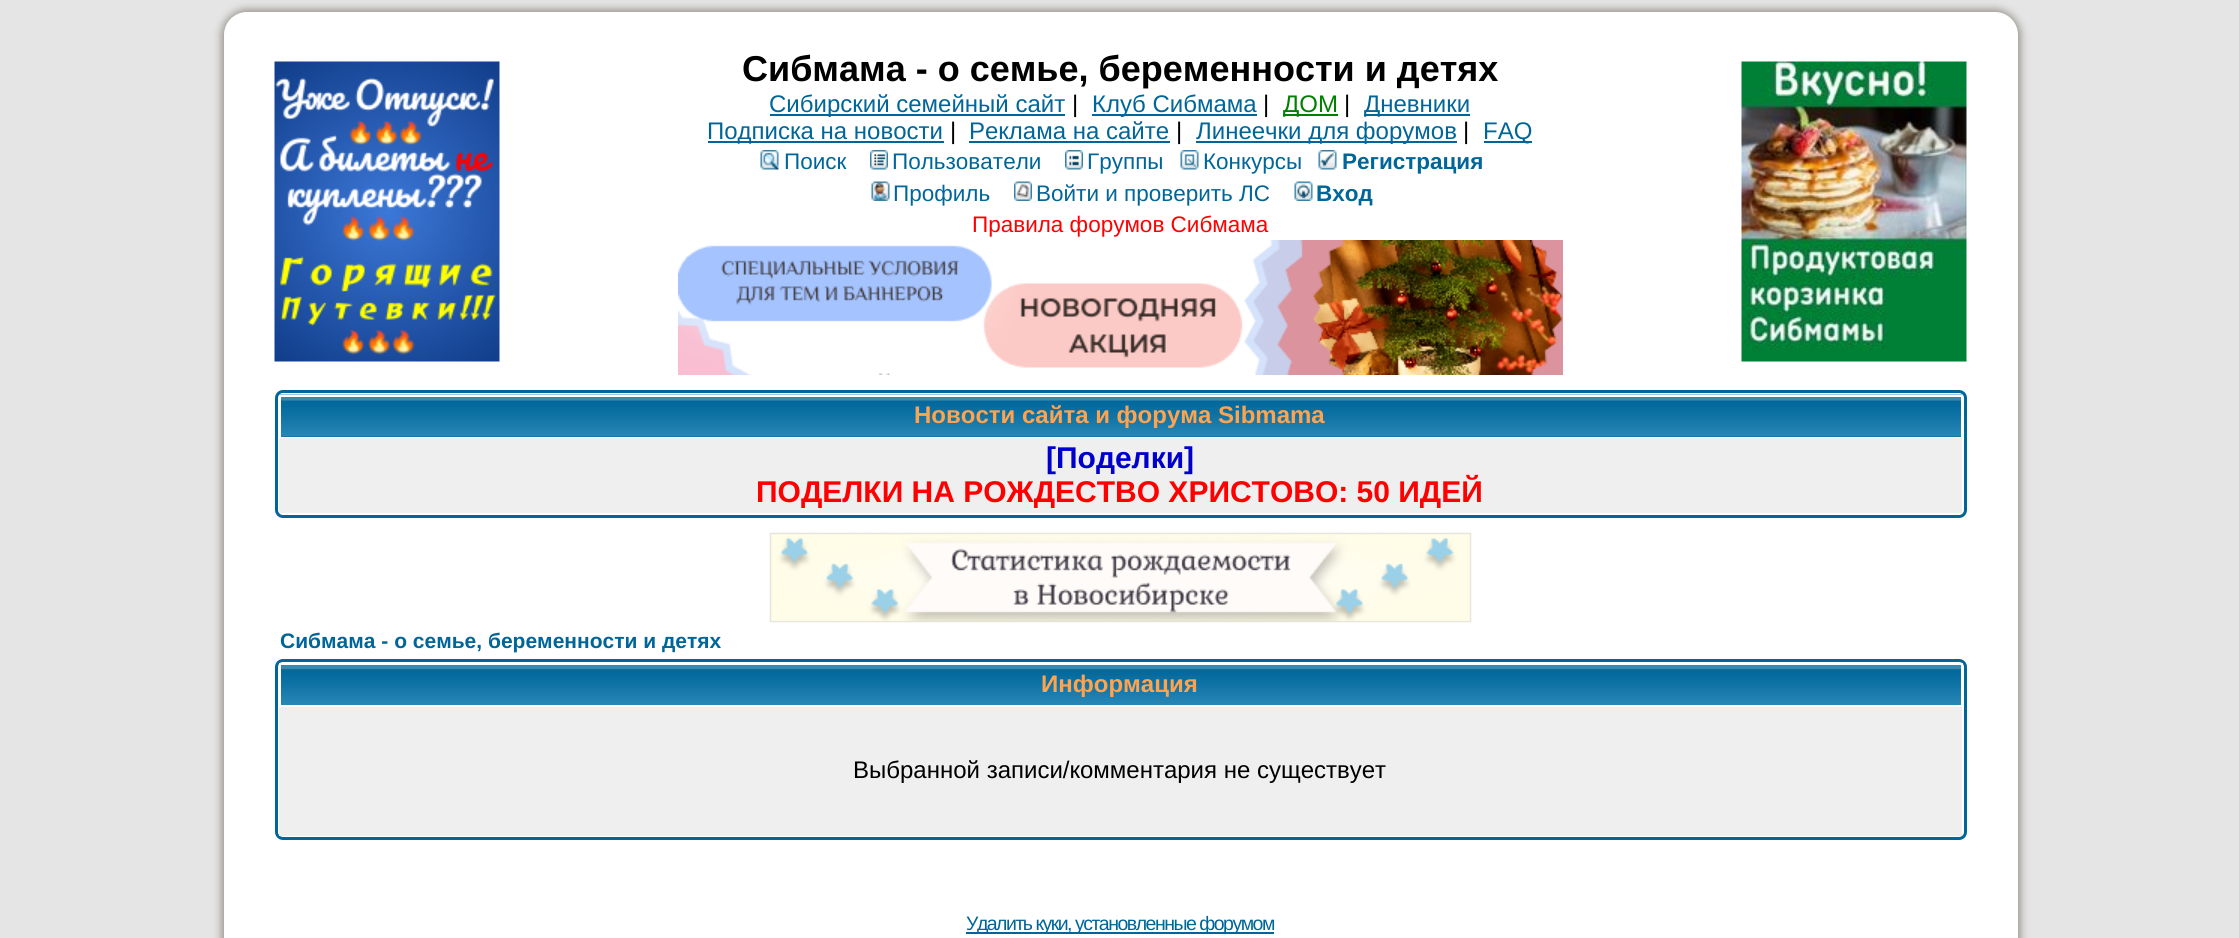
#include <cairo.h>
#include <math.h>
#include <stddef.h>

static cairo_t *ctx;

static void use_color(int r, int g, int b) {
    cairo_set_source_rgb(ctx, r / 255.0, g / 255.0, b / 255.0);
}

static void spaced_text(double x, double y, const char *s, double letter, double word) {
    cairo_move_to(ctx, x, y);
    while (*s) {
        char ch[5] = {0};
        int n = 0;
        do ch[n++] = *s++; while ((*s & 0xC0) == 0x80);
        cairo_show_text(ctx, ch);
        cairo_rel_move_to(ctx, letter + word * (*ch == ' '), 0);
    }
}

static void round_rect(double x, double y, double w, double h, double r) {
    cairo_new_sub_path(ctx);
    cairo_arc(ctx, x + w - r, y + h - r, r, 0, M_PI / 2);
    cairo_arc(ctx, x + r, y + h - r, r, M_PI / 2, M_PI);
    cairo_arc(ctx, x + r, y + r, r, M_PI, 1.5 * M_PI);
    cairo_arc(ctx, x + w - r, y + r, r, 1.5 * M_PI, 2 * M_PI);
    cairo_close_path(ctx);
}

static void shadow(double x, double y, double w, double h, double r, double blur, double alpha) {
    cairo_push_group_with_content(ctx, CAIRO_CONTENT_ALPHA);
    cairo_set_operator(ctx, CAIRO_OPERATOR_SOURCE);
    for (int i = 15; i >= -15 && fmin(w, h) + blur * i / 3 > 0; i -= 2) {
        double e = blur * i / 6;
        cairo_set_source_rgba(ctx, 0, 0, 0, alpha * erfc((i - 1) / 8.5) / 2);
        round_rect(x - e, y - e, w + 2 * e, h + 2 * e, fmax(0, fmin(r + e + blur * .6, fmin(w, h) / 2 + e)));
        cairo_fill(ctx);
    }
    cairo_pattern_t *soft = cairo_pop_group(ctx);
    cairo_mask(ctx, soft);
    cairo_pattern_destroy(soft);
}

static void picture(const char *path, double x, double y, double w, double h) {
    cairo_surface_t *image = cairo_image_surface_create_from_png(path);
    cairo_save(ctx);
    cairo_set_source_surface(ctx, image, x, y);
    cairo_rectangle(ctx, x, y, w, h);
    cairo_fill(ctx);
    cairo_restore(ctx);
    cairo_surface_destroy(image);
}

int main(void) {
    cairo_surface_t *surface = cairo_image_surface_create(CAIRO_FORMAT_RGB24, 2239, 938);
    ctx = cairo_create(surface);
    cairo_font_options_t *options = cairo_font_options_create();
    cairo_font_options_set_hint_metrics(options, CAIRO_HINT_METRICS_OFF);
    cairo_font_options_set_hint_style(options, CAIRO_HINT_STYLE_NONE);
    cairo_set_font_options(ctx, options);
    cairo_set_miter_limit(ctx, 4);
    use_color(229, 229, 229);
    cairo_paint(ctx);
    use_color(157, 154, 147);
    shadow(221, 9, 1800, 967, 26, 4, 1);
    use_color(255, 255, 255);
    round_rect(225.5, 13.5, 1791, 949, 21.5);
    cairo_fill_preserve(ctx);
    cairo_set_line_width(ctx, 3);
    cairo_stroke(ctx);
    picture("img1.png", 274, 61, 226, 301);
    cairo_select_font_face(ctx, "Liberation Sans", CAIRO_FONT_SLANT_NORMAL, CAIRO_FONT_WEIGHT_BOLD);
    cairo_set_font_size(ctx, 36);
    use_color(0, 0, 0);
    cairo_move_to(ctx, 742, 81);
    cairo_show_text(ctx, "Сибмама - о семье, беременности и детях");
    use_color(0, 102, 153);
    cairo_rectangle(ctx, 770, 114, 295, 2);
    cairo_fill(ctx);
    cairo_select_font_face(ctx, "Liberation Sans", CAIRO_FONT_SLANT_NORMAL, CAIRO_FONT_WEIGHT_NORMAL);
    cairo_set_font_size(ctx, 24);
    cairo_move_to(ctx, 769, 112);
    cairo_show_text(ctx, "Сибирский семейный сайт");
    use_color(0, 0, 0);
    cairo_move_to(ctx, 1072, 112);
    cairo_show_text(ctx, "|");
    use_color(0, 102, 153);
    cairo_rectangle(ctx, 1092, 114, 165, 2);
    cairo_fill(ctx);
    cairo_move_to(ctx, 1092, 112);
    cairo_show_text(ctx, "Клуб Сибмама");
    use_color(0, 0, 0);
    cairo_move_to(ctx, 1263, 112);
    cairo_show_text(ctx, "|");
    use_color(0, 128, 0);
    cairo_rectangle(ctx, 1283, 114, 55, 2);
    cairo_fill(ctx);
    cairo_move_to(ctx, 1283, 112);
    cairo_show_text(ctx, "ДОМ");
    use_color(0, 0, 0);
    cairo_move_to(ctx, 1344, 112);
    cairo_show_text(ctx, "|");
    use_color(0, 102, 153);
    cairo_rectangle(ctx, 1364, 114, 106, 2);
    cairo_fill(ctx);
    cairo_move_to(ctx, 1364, 112);
    cairo_show_text(ctx, "Дневники");
    cairo_rectangle(ctx, 708, 141, 236, 2);
    cairo_fill(ctx);
    cairo_move_to(ctx, 707, 139);
    cairo_show_text(ctx, "Подписка на новости");
    use_color(0, 0, 0);
    cairo_move_to(ctx, 950, 139);
    cairo_show_text(ctx, "|");
    use_color(0, 102, 153);
    cairo_move_to(ctx, 969, 139);
    cairo_show_text(ctx, "Реклама на сайте");
    cairo_rectangle(ctx, 969, 141, 201, 2);
    cairo_fill(ctx);
    use_color(0, 0, 0);
    cairo_move_to(ctx, 1176, 139);
    cairo_show_text(ctx, "|");
    use_color(0, 102, 153);
    cairo_rectangle(ctx, 1196, 141, 261, 2);
    cairo_fill(ctx);
    cairo_move_to(ctx, 1196, 139);
    cairo_show_text(ctx, "Линеечки для форумов");
    use_color(0, 0, 0);
    cairo_move_to(ctx, 1463, 139);
    cairo_show_text(ctx, "|");
    use_color(0, 102, 153);
    cairo_rectangle(ctx, 1484, 141, 48, 2);
    cairo_fill(ctx);
    cairo_move_to(ctx, 1483, 139);
    cairo_show_text(ctx, "FAQ");
    picture("img2.png", 760, 150, 19, 20);
    cairo_set_font_size(ctx, 22.5);
    cairo_move_to(ctx, 784, 169);
    cairo_show_text(ctx, "Поиск");
    picture("img3.png", 870, 150, 18, 20);
    cairo_move_to(ctx, 892, 169);
    cairo_show_text(ctx, "Пользователи");
    picture("img4.png", 1065, 150, 18, 20);
    cairo_move_to(ctx, 1087, 169);
    cairo_show_text(ctx, "Группы");
    picture("img5.png", 1180, 150, 19, 20);
    cairo_move_to(ctx, 1203, 169);
    cairo_show_text(ctx, "Конкурсы");
    picture("img6.png", 1318, 150, 19, 20);
    cairo_select_font_face(ctx, "Liberation Sans", CAIRO_FONT_SLANT_NORMAL, CAIRO_FONT_WEIGHT_BOLD);
    cairo_move_to(ctx, 1342, 169);
    cairo_show_text(ctx, "Рeгиcтpaция");
    picture("img7.png", 871, 181, 19, 20);
    cairo_select_font_face(ctx, "Liberation Sans", CAIRO_FONT_SLANT_NORMAL, CAIRO_FONT_WEIGHT_NORMAL);
    cairo_move_to(ctx, 893, 201);
    cairo_show_text(ctx, "Профиль");
    picture("img8.png", 1014, 181, 18, 20);
    cairo_move_to(ctx, 1036, 201);
    cairo_show_text(ctx, "Войти и проверить ЛС");
    picture("img9.png", 1294, 181, 19, 20);
    cairo_select_font_face(ctx, "Liberation Sans", CAIRO_FONT_SLANT_NORMAL, CAIRO_FONT_WEIGHT_BOLD);
    cairo_move_to(ctx, 1316, 201);
    cairo_show_text(ctx, "Вход");
    cairo_select_font_face(ctx, "Liberation Sans", CAIRO_FONT_SLANT_NORMAL, CAIRO_FONT_WEIGHT_NORMAL);
    use_color(255, 0, 0);
    cairo_move_to(ctx, 972, 232);
    cairo_show_text(ctx, "Правила форумов Сибмама");
    picture("img10.png", 678, 240, 885, 135);
    picture("img11.png", 1741, 61, 226, 301);
    round_rect(276.5, 391.5, 1689, 125, 6.5);
    use_color(0, 102, 153);
    cairo_stroke(ctx);
    cairo_rectangle(ctx, 281, 436, 1680, 1);
    cairo_fill(ctx);
    picture("img12.png", 279, 394, 1683, 43);
    use_color(255, 255, 255);
    cairo_rectangle(ctx, 279, 395, 1683, 2);
    cairo_fill(ctx);
    cairo_rectangle(ctx, 1961, 395, 1, 42);
    cairo_fill(ctx);
    cairo_rectangle(ctx, 279, 395, 2, 42);
    cairo_fill(ctx);
    cairo_select_font_face(ctx, "Liberation Sans", CAIRO_FONT_SLANT_NORMAL, CAIRO_FONT_WEIGHT_BOLD);
    cairo_set_font_size(ctx, 24);
    use_color(255, 163, 79);
    cairo_move_to(ctx, 914, 423);
    cairo_show_text(ctx, "Новости сайта и форума Sibmama");
    use_color(239, 239, 239);
    cairo_rectangle(ctx, 279, 438, 1683, 75);
    cairo_fill(ctx);
    cairo_set_font_size(ctx, 30);
    use_color(0, 0, 205);
    cairo_move_to(ctx, 1046, 468);
    cairo_show_text(ctx, "[Поделки]");
    use_color(255, 0, 0);
    cairo_move_to(ctx, 756, 502);
    cairo_show_text(ctx, "ПОДЕЛКИ НА РОЖДЕСТВО ХРИСТОВО: 50 ИДЕЙ");
    picture("img13.png", 769, 532, 703, 91);
    cairo_set_font_size(ctx, 21);
    use_color(0, 102, 153);
    cairo_move_to(ctx, 280, 648);
    cairo_show_text(ctx, "Сибмама - о семье, беременности и детях");
    round_rect(276.5, 660.5, 1689, 178, 6.5);
    cairo_stroke(ctx);
    picture("img14.png", 281, 665, 1680, 40);
    use_color(255, 255, 255);
    cairo_rectangle(ctx, 279, 663, 1, 1);
    cairo_fill(ctx);
    cairo_rectangle(ctx, 1962, 663, 1, 1);
    cairo_fill(ctx);
    cairo_set_font_size(ctx, 24);
    use_color(255, 163, 79);
    cairo_move_to(ctx, 1041, 692);
    cairo_show_text(ctx, "Информация");
    use_color(239, 239, 239);
    cairo_rectangle(ctx, 279, 707, 1683, 129);
    cairo_fill(ctx);
    cairo_select_font_face(ctx, "Liberation Sans", CAIRO_FONT_SLANT_NORMAL, CAIRO_FONT_WEIGHT_NORMAL);
    use_color(0, 0, 0);
    cairo_move_to(ctx, 853, 778);
    cairo_show_text(ctx, "Выбранной записи/комментария не существует");
    use_color(0, 102, 153);
    cairo_rectangle(ctx, 966, 932, 308, 2);
    cairo_fill(ctx);
    cairo_set_font_size(ctx, 19.5);
    spaced_text(966, 930, "Удалить куки, установленные форумом", -1.5, 0);
    cairo_surface_write_to_png(surface, "result.png");
    cairo_font_options_destroy(options);
    cairo_destroy(ctx);
    cairo_surface_destroy(surface);
    return 0;
}
